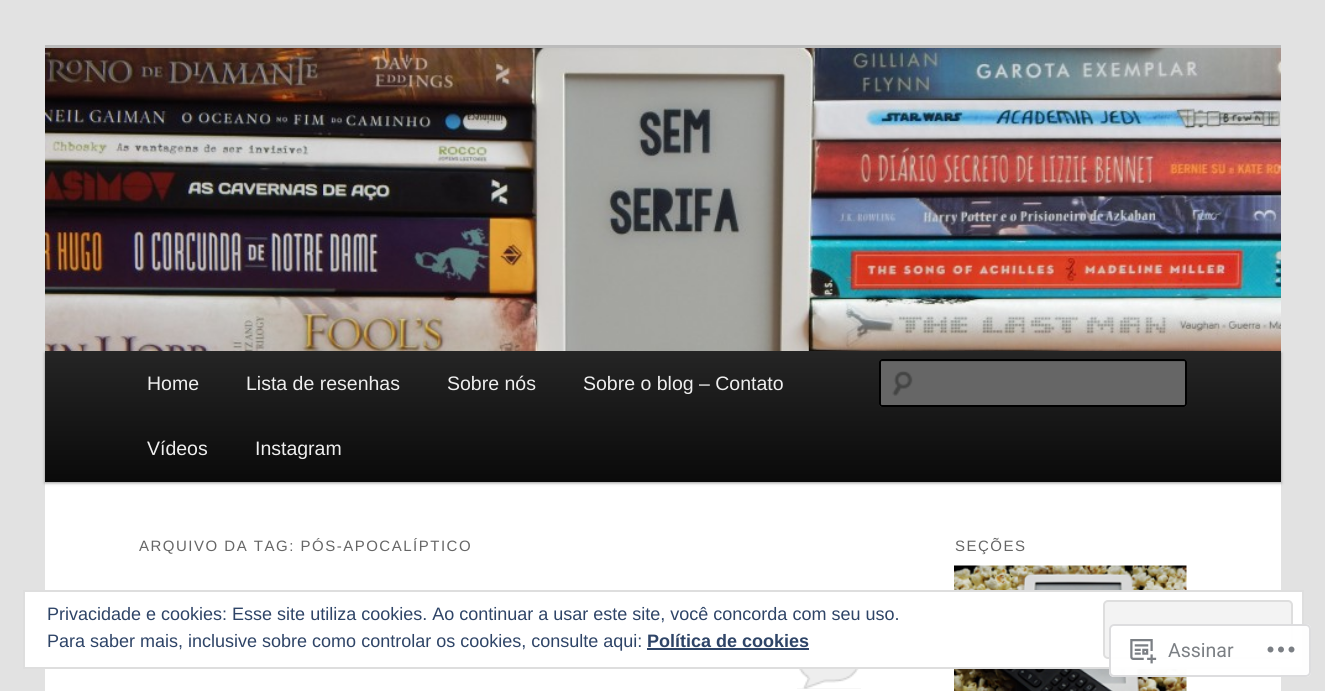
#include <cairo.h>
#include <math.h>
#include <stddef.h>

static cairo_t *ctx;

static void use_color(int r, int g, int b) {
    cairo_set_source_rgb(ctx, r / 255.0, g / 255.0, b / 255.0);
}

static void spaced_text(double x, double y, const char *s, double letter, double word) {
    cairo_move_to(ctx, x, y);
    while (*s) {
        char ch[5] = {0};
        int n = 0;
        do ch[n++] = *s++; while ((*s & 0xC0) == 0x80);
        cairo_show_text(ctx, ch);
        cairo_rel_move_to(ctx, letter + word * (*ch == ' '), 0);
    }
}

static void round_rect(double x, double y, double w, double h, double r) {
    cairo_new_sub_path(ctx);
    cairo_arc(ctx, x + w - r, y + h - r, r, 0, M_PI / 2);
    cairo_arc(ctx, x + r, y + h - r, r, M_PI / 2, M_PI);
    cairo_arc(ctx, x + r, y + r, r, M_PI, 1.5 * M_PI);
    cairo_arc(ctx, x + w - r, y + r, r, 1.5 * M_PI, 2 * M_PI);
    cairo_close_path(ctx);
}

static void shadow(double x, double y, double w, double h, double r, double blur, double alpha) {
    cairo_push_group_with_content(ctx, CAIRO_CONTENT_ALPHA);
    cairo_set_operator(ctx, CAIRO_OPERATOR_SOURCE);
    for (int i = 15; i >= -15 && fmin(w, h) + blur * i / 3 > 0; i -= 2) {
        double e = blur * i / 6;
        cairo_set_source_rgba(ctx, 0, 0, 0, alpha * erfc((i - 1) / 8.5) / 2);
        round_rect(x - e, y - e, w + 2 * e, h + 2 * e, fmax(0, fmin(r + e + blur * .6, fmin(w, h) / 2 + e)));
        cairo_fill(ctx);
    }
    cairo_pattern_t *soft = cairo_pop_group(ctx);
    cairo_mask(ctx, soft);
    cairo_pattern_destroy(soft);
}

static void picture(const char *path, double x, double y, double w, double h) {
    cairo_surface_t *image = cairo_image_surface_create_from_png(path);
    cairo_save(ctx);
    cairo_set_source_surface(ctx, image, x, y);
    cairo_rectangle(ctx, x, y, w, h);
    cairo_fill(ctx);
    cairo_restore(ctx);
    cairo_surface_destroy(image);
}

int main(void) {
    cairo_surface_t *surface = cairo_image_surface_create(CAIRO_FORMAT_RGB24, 1325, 691);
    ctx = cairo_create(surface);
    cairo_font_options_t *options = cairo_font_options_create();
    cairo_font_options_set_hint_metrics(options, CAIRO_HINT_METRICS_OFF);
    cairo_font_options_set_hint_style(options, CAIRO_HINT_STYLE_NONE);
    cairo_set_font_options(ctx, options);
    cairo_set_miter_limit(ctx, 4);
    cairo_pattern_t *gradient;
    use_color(226, 226, 226);
    cairo_paint(ctx);
    use_color(255, 255, 255);
    cairo_rectangle(ctx, 45, 482, 1236, 209);
    cairo_fill(ctx);
    use_color(187, 187, 187);
    cairo_rectangle(ctx, 45, 45, 1236, 3);
    cairo_fill(ctx);
    use_color(0, 0, 0);
    shadow(45, 353, 1236, 130, 0, 1.5, 0.4);
    picture("img1.png", 45, 48, 1236, 303);
    gradient = cairo_pattern_create_linear(663, 351, 663, 482);
    cairo_pattern_add_color_stop_rgba(gradient, 0, 0.145, 0.145, 0.145, 1);
    cairo_pattern_add_color_stop_rgba(gradient, 1, 0.039, 0.039, 0.039, 1);
    cairo_set_source(ctx, gradient);
    cairo_pattern_destroy(gradient);
    cairo_rectangle(ctx, 45, 351, 1236, 131);
    cairo_fill(ctx);
    cairo_select_font_face(ctx, "Liberation Sans", CAIRO_FONT_SLANT_NORMAL, CAIRO_FONT_WEIGHT_NORMAL);
    cairo_set_font_size(ctx, 19.5);
    use_color(238, 238, 238);
    cairo_move_to(ctx, 147, 390);
    cairo_show_text(ctx, "Home");
    cairo_move_to(ctx, 246, 390);
    cairo_show_text(ctx, "Lista de resenhas");
    cairo_move_to(ctx, 447, 390);
    cairo_show_text(ctx, "Sobre nós");
    cairo_move_to(ctx, 583, 390);
    cairo_show_text(ctx, "Sobre o blog – Contato");
    cairo_move_to(ctx, 147, 455);
    cairo_show_text(ctx, "Vídeos");
    cairo_move_to(ctx, 255, 455);
    cairo_show_text(ctx, "Instagram");
    use_color(102, 102, 102);
    round_rect(879, 359, 308, 48, 3);
    cairo_fill(ctx);
    picture("img2.png", 892, 371, 21, 25);
    use_color(92, 92, 92);
    cairo_new_path(ctx);
    cairo_move_to(ctx, 882, 362);
    cairo_line_to(ctx, 1184, 362);
    cairo_line_to(ctx, 1185, 363);
    cairo_line_to(ctx, 1185, 362);
    cairo_curve_to(ctx, 1185, 361, 1184, 360, 1184, 360);
    cairo_line_to(ctx, 882, 360);
    cairo_curve_to(ctx, 882, 360, 881, 361, 881, 362);
    cairo_close_path(ctx);
    cairo_fill(ctx);
    round_rect(880, 360, 306, 46, 2);
    use_color(0, 0, 0);
    cairo_stroke(ctx);
    cairo_set_font_size(ctx, 15);
    use_color(102, 102, 102);
    spaced_text(139, 551, "ARQUIVO DA TAG: PÓS-APOCALÍPTICO", 1.5, 0);
    use_color(238, 238, 238);
    cairo_rectangle(ctx, 797, 669, 64, 20);
    cairo_fill(ctx);
    picture("img3.png", 797, 669, 64, 20);
    use_color(102, 102, 102);
    spaced_text(955, 551, "SEÇÕES", 1.5, 0);
    picture("img4.png", 954, 565, 233, 126);
    use_color(255, 255, 255);
    cairo_rectangle(ctx, 24, 591, 1279, 77);
    cairo_fill_preserve(ctx);
    use_color(222, 222, 222);
    cairo_stroke(ctx);
    cairo_set_font_size(ctx, 18);
    use_color(46, 68, 103);
    cairo_move_to(ctx, 47, 620);
    cairo_show_text(ctx, "Privacidade e cookies: Esse site utiliza cookies. Ao continuar a usar este site, você concorda com seu uso.");
    use_color(243, 243, 243);
    round_rect(1104, 601, 188, 57, 4);
    cairo_fill_preserve(ctx);
    use_color(222, 222, 222);
    cairo_stroke(ctx);
    use_color(46, 68, 103);
    cairo_move_to(ctx, 47, 647);
    cairo_show_text(ctx, "Para saber mais, inclusive sobre como controlar os cookies, consulte aqui:");
    cairo_select_font_face(ctx, "Liberation Sans", CAIRO_FONT_SLANT_NORMAL, CAIRO_FONT_WEIGHT_BOLD);
    cairo_move_to(ctx, 647, 647);
    cairo_show_text(ctx, "Política de cookies");
    cairo_rectangle(ctx, 647, 648, 162, 2);
    cairo_fill(ctx);
    cairo_set_source_rgba(ctx, 1, 1, 1, 0.98);
    round_rect(1109, 624, 202, 53, 5);
    cairo_fill(ctx);
    round_rect(1110, 625, 200, 51, 4);
    cairo_set_source_rgba(ctx, 0.863, 0.863, 0.871, 0.98);
    cairo_stroke(ctx);
    picture("img5.png", 1130, 639, 27, 25);
    cairo_select_font_face(ctx, "Roboto", CAIRO_FONT_SLANT_NORMAL, CAIRO_FONT_WEIGHT_NORMAL);
    cairo_set_font_size(ctx, 19.5);
    use_color(123, 127, 132);
    cairo_move_to(ctx, 1168, 657);
    cairo_show_text(ctx, "Assinar");
    picture("img6.png", 1267, 646, 28, 7);
    cairo_surface_write_to_png(surface, "result.png");
    cairo_font_options_destroy(options);
    cairo_destroy(ctx);
    cairo_surface_destroy(surface);
    return 0;
}
